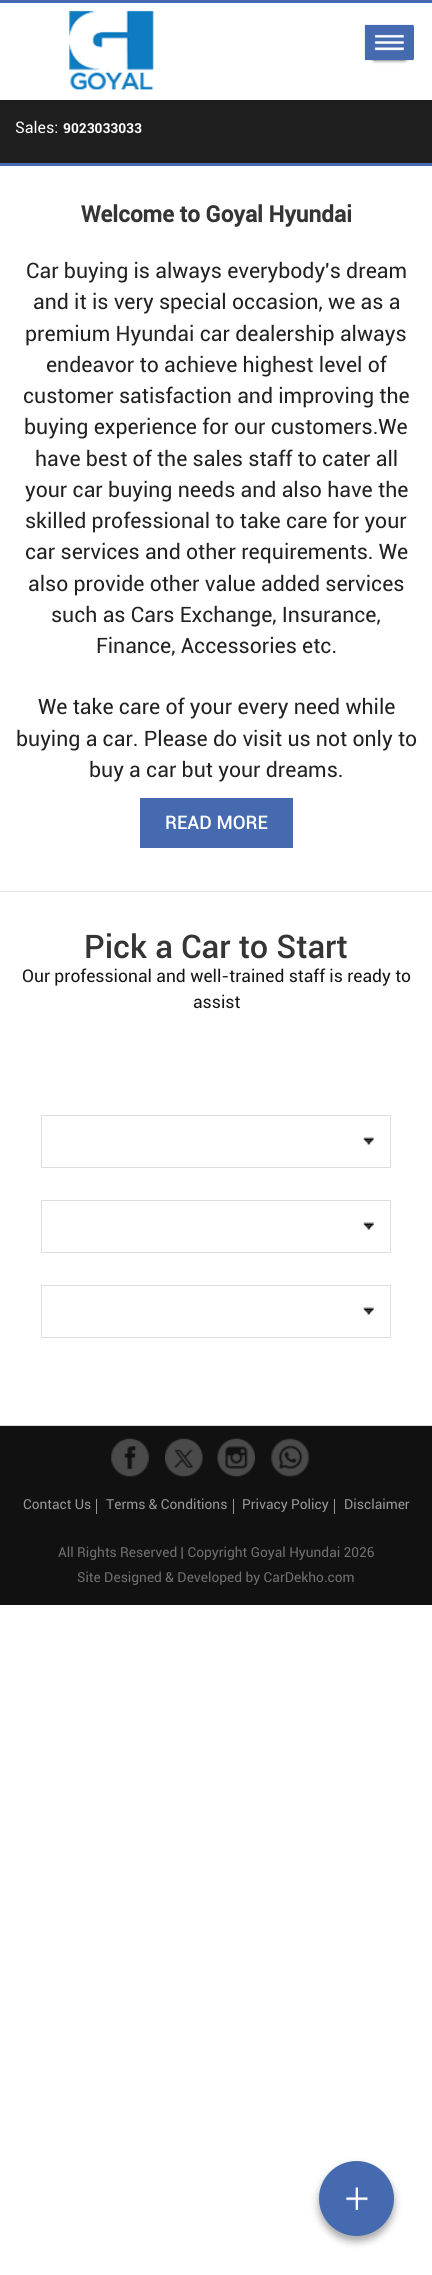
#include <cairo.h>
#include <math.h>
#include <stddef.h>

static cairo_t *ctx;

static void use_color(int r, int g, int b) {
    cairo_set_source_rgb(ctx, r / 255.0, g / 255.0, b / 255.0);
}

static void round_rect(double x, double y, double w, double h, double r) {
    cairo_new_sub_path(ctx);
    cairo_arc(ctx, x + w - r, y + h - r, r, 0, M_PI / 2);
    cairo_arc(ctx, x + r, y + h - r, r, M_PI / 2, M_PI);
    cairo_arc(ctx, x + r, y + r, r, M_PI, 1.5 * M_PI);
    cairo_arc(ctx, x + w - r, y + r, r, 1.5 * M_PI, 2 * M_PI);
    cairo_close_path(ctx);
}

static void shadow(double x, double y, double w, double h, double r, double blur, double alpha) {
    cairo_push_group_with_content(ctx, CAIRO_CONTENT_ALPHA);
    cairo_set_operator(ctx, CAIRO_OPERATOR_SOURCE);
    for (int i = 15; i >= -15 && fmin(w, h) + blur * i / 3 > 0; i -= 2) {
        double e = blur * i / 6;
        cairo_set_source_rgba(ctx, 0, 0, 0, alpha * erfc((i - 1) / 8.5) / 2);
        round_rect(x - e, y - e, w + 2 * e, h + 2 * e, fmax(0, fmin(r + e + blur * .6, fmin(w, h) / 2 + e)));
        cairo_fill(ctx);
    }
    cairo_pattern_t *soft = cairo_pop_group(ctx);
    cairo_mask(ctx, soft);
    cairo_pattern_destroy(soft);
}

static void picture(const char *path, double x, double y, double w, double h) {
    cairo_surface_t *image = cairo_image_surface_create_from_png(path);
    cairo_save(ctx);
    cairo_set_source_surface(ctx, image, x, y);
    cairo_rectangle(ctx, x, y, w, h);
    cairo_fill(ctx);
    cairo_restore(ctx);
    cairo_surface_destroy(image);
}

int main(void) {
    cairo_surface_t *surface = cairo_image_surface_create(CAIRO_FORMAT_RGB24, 432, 2275);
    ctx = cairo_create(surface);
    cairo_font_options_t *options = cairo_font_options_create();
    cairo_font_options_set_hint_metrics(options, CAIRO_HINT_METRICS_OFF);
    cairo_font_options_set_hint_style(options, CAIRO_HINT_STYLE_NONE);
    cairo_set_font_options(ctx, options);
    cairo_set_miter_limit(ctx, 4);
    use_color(255, 255, 255);
    cairo_paint(ctx);
    use_color(69, 106, 176);
    cairo_rectangle(ctx, 0, 0, 432, 3);
    cairo_fill(ctx);
    cairo_rectangle(ctx, 0, 163, 432, 3);
    cairo_fill(ctx);
    use_color(55, 52, 53);
    shadow(374, 43, 31, 17, 0, 2, 1);
    use_color(69, 106, 176);
    round_rect(365, 25, 49, 35, 2.5);
    cairo_fill(ctx);
    picture("img1.png", 374, 34, 30, 17);
    cairo_new_path(ctx);
    cairo_move_to(ctx, 368, 28);
    cairo_line_to(ctx, 410.5, 28);
    cairo_line_to(ctx, 410.5, 57);
    cairo_line_to(ctx, 368, 57);
    cairo_close_path(ctx);
    cairo_set_line_width(ctx, 6.2);
    cairo_stroke(ctx);
    picture("img2.png", 69, 10, 85, 80);
    use_color(30, 30, 30);
    cairo_rectangle(ctx, 0, 100, 432, 63);
    cairo_fill(ctx);
    cairo_select_font_face(ctx, "Roboto", CAIRO_FONT_SLANT_NORMAL, CAIRO_FONT_WEIGHT_NORMAL);
    cairo_set_font_size(ctx, 16);
    use_color(255, 255, 255);
    cairo_move_to(ctx, 15, 133);
    cairo_show_text(ctx, "Sales:");
    cairo_select_font_face(ctx, "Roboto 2", CAIRO_FONT_SLANT_NORMAL, CAIRO_FONT_WEIGHT_BOLD);
    cairo_set_font_size(ctx, 13.75);
    cairo_move_to(ctx, 63, 133);
    cairo_show_text(ctx, "9023033033");
    cairo_select_font_face(ctx, "Roboto", CAIRO_FONT_SLANT_NORMAL, CAIRO_FONT_WEIGHT_BOLD);
    cairo_set_font_size(ctx, 22.5);
    use_color(53, 53, 53);
    cairo_move_to(ctx, 81, 222);
    cairo_show_text(ctx, "Welcome to Goyal Hyundai");
    cairo_select_font_face(ctx, "Roboto", CAIRO_FONT_SLANT_NORMAL, CAIRO_FONT_WEIGHT_NORMAL);
    cairo_set_font_size(ctx, 21.25);
    use_color(33, 33, 33);
    cairo_move_to(ctx, 26, 278);
    cairo_show_text(ctx, "Car buying is always everybody's dream");
    cairo_move_to(ctx, 33, 309);
    cairo_show_text(ctx, "and it is very special occasion, we as a");
    cairo_move_to(ctx, 25, 341);
    cairo_show_text(ctx, "premium Hyundai car dealership always");
    cairo_move_to(ctx, 46, 372);
    cairo_show_text(ctx, "endeavor to achieve highest level of");
    cairo_move_to(ctx, 23, 403);
    cairo_show_text(ctx, "customer satisfaction and improving the");
    cairo_move_to(ctx, 24, 434);
    cairo_show_text(ctx, "buying experience for our customers.We");
    cairo_move_to(ctx, 35, 466);
    cairo_show_text(ctx, "have best of the sales staff to cater all");
    cairo_move_to(ctx, 25, 497);
    cairo_show_text(ctx, "your car buying needs and also have the");
    cairo_move_to(ctx, 25, 528);
    cairo_show_text(ctx, "skilled professional to take care for your");
    cairo_move_to(ctx, 25, 559);
    cairo_show_text(ctx, "car services and other requirements. We");
    cairo_move_to(ctx, 28, 591);
    cairo_show_text(ctx, "also provide other value added services");
    cairo_move_to(ctx, 51, 622);
    cairo_show_text(ctx, "such as Cars Exchange, Insurance,");
    cairo_move_to(ctx, 96, 653);
    cairo_show_text(ctx, "Finance, Accessories etc.");
    cairo_move_to(ctx, 38, 714);
    cairo_show_text(ctx, "We take care of your every need while");
    cairo_move_to(ctx, 16, 746);
    cairo_show_text(ctx, "buying a car. Please do visit us not only to");
    cairo_move_to(ctx, 89, 777);
    cairo_show_text(ctx, "buy a car but your dreams.");
    use_color(69, 106, 176);
    cairo_rectangle(ctx, 140, 798, 153, 50);
    cairo_fill(ctx);
    cairo_select_font_face(ctx, "Roboto Medium", CAIRO_FONT_SLANT_NORMAL, CAIRO_FONT_WEIGHT_NORMAL);
    cairo_set_font_size(ctx, 18.75);
    use_color(255, 255, 255);
    cairo_move_to(ctx, 165, 829);
    cairo_show_text(ctx, "READ MORE");
    use_color(230, 230, 230);
    cairo_rectangle(ctx, 0, 891, 432, 1);
    cairo_fill(ctx);
    cairo_set_font_size(ctx, 32.5);
    use_color(53, 53, 53);
    cairo_move_to(ctx, 84, 958);
    cairo_show_text(ctx, "Pick a Car to Start");
    cairo_select_font_face(ctx, "Roboto", CAIRO_FONT_SLANT_NORMAL, CAIRO_FONT_WEIGHT_NORMAL);
    cairo_set_font_size(ctx, 17.5);
    use_color(21, 21, 21);
    cairo_move_to(ctx, 22, 982);
    cairo_show_text(ctx, "Our professional and well-trained staff is ready to");
    cairo_move_to(ctx, 193, 1008);
    cairo_show_text(ctx, "assist");
    use_color(219, 219, 219);
    cairo_rectangle(ctx, 0, 1425, 432, 1);
    cairo_fill(ctx);
    picture("img3.png", 363, 1137, 11, 8);
    cairo_rectangle(ctx, 41.5, 1115.5, 349, 52);
    use_color(221, 221, 221);
    cairo_set_line_width(ctx, 1);
    cairo_stroke(ctx);
    picture("img3.png", 363, 1222, 11, 8);
    cairo_rectangle(ctx, 41.5, 1200.5, 349, 52);
    cairo_stroke(ctx);
    picture("img3.png", 363, 1307, 11, 8);
    cairo_rectangle(ctx, 41.5, 1285.5, 349, 52);
    cairo_stroke(ctx);
    use_color(17, 17, 17);
    cairo_rectangle(ctx, 0, 1426, 432, 179);
    cairo_fill(ctx);
    picture("img4.png", 111, 1438, 38, 39);
    picture("img5.png", 165, 1438, 38, 39);
    picture("img6.png", 217, 1438, 38, 39);
    picture("img7.png", 271, 1438, 38, 39);
    use_color(153, 153, 153);
    cairo_rectangle(ctx, 96, 1499, 1, 15);
    cairo_fill(ctx);
    cairo_set_font_size(ctx, 13.75);
    cairo_move_to(ctx, 23, 1509);
    cairo_show_text(ctx, "Contact Us");
    cairo_rectangle(ctx, 233, 1499, 1, 15);
    cairo_fill(ctx);
    cairo_move_to(ctx, 106, 1509);
    cairo_show_text(ctx, "Terms & Conditions");
    cairo_rectangle(ctx, 334, 1499, 1, 15);
    cairo_fill(ctx);
    cairo_move_to(ctx, 242, 1509);
    cairo_show_text(ctx, "Privacy Policy");
    cairo_move_to(ctx, 344, 1509);
    cairo_show_text(ctx, "Disclaimer");
    use_color(112, 112, 112);
    cairo_move_to(ctx, 58, 1557);
    cairo_show_text(ctx, "All Rights Reserved | Copyright Goyal Hyundai 2026");
    cairo_move_to(ctx, 77, 1582);
    cairo_show_text(ctx, "Site Designed & Developed by CarDekho.com");
    use_color(0, 0, 0);
    shadow(319, 2166, 75, 75, 37.5, 4, 0.19);
    shadow(319, 2166, 75, 75, 37.5, 4, 0.2);
    use_color(69, 106, 176);
    cairo_arc(ctx, 356.5, 2198.5, 37.5, 0, 2 * M_PI);
    cairo_fill(ctx);
    picture("img8.png", 345, 2187, 23, 23);
    cairo_surface_write_to_png(surface, "result.png");
    cairo_font_options_destroy(options);
    cairo_destroy(ctx);
    cairo_surface_destroy(surface);
    return 0;
}
